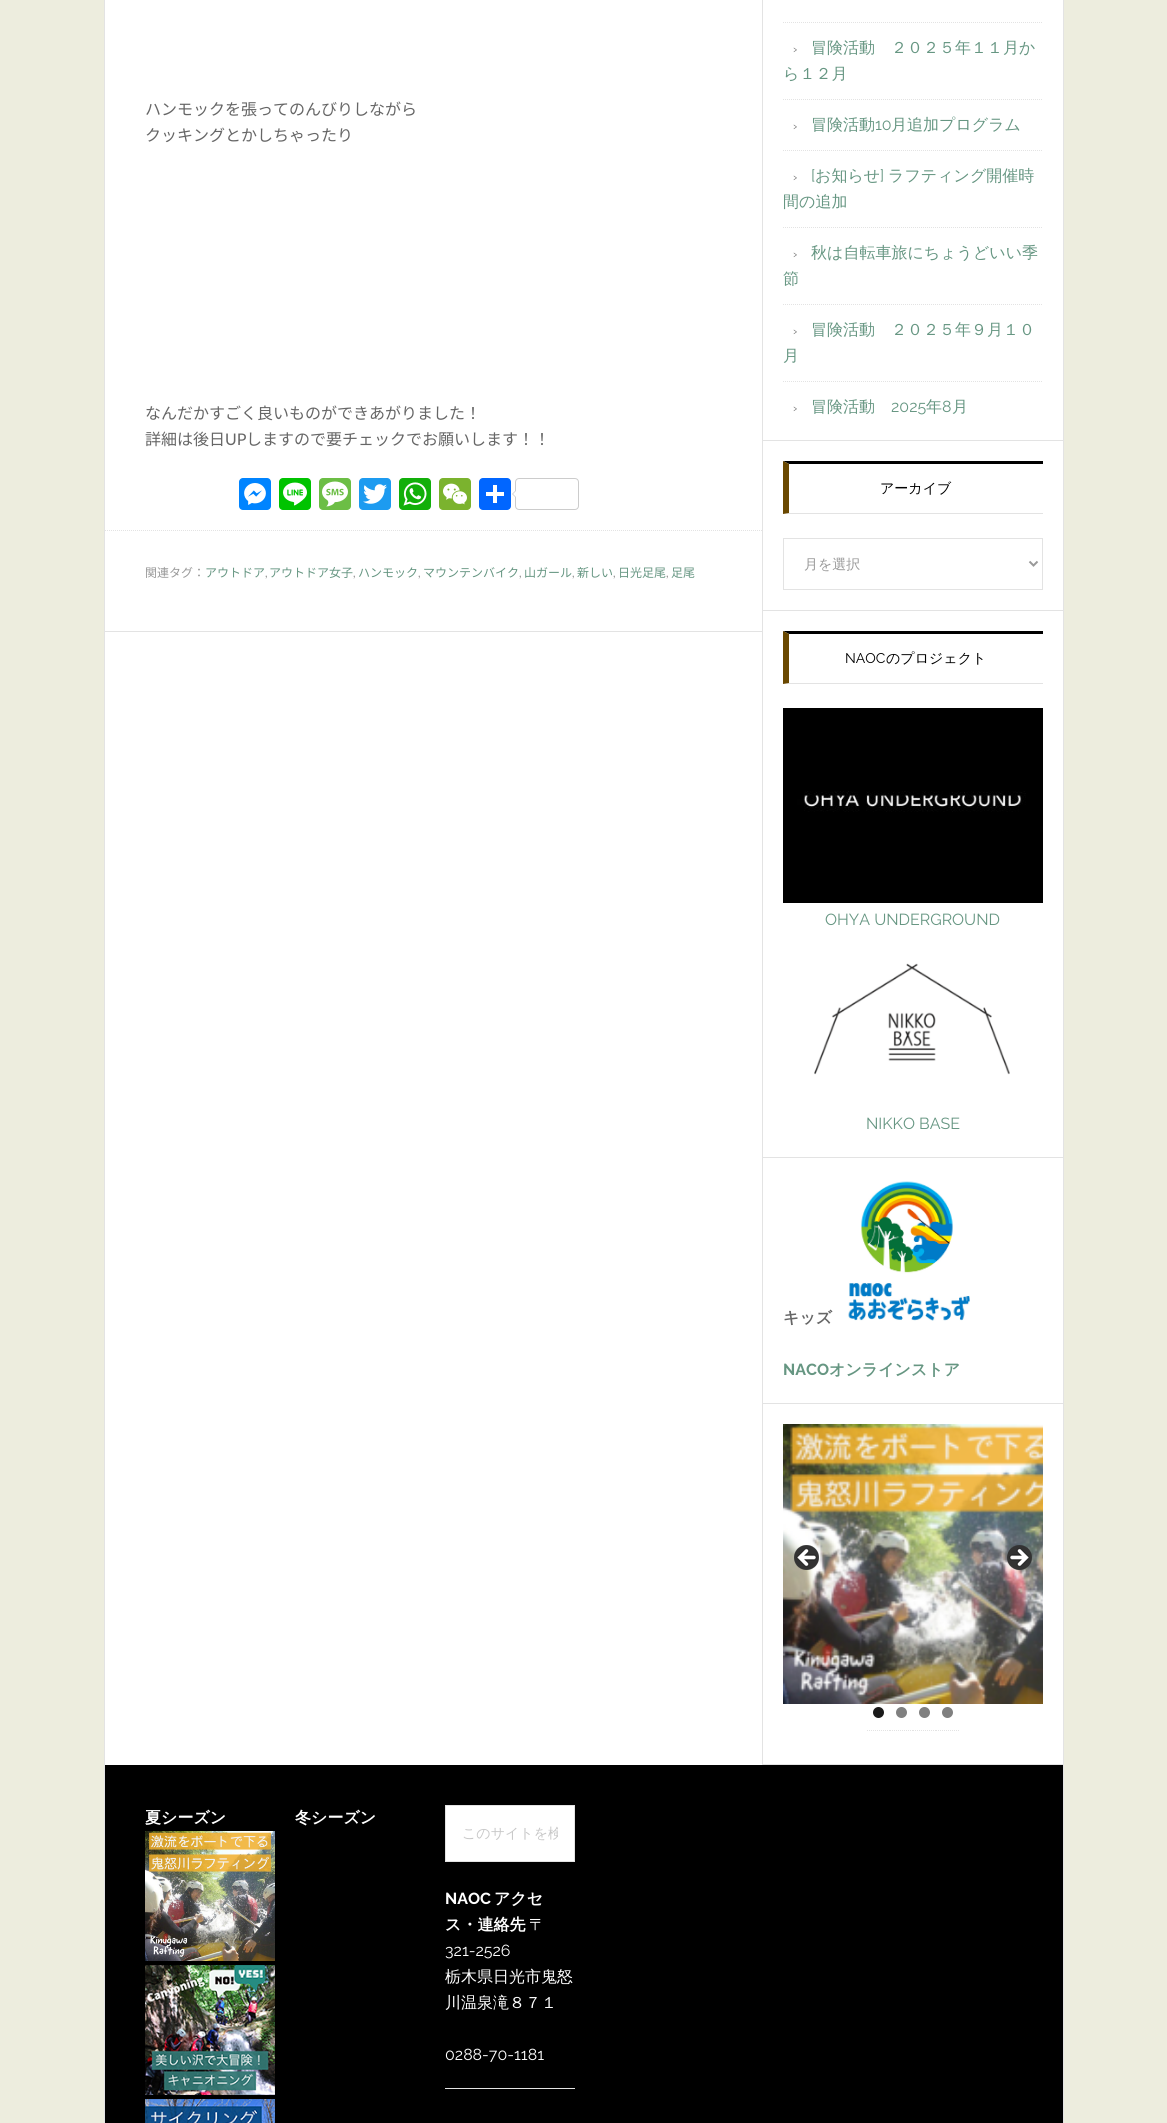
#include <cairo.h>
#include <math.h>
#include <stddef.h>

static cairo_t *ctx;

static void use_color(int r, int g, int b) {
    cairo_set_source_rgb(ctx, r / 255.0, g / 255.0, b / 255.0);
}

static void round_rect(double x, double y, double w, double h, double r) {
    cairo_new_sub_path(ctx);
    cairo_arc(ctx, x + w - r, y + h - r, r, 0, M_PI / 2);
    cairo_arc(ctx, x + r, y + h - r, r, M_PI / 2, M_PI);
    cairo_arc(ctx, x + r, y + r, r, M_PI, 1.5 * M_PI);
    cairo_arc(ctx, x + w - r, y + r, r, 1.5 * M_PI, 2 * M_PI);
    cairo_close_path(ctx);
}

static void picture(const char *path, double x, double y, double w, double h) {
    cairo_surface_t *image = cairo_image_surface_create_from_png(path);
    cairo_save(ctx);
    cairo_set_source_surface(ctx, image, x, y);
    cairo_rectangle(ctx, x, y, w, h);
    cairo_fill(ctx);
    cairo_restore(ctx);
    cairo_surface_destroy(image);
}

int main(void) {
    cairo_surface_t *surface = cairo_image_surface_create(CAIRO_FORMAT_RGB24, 1167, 2123);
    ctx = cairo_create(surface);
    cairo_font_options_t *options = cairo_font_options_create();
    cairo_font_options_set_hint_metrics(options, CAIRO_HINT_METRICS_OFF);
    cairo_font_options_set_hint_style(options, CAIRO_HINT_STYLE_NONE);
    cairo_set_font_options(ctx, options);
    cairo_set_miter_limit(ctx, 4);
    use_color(237, 237, 222);
    cairo_paint(ctx);
    use_color(255, 255, 255);
    cairo_rectangle(ctx, 105, 0, 958, 1765);
    cairo_fill(ctx);
    cairo_rectangle(ctx, 104.5, -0.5, 959, 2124);
    use_color(227, 227, 227);
    cairo_set_line_width(ctx, 1);
    cairo_stroke(ctx);
    cairo_rectangle(ctx, 762, 0, 1, 1765);
    cairo_fill(ctx);
    cairo_rectangle(ctx, 105, 631, 657, 1);
    cairo_fill(ctx);
    cairo_select_font_face(ctx, "Noto Sans JP", CAIRO_FONT_SLANT_NORMAL, CAIRO_FONT_WEIGHT_NORMAL);
    cairo_set_font_size(ctx, 16);
    use_color(102, 102, 102);
    cairo_move_to(ctx, 145, 115);
    cairo_show_text(ctx, "ハンモックを張ってのんびりしながら");
    cairo_move_to(ctx, 145, 141);
    cairo_show_text(ctx, "クッキングとかしちゃったり");
    cairo_move_to(ctx, 145, 419);
    cairo_show_text(ctx, "なんだかすごく良いものができあがりました！");
    cairo_move_to(ctx, 145, 445);
    cairo_show_text(ctx, "詳細は後日");
    cairo_select_font_face(ctx, "Lato", CAIRO_FONT_SLANT_NORMAL, CAIRO_FONT_WEIGHT_NORMAL);
    cairo_move_to(ctx, 225, 445);
    cairo_show_text(ctx, "UP");
    cairo_select_font_face(ctx, "Noto Sans JP", CAIRO_FONT_SLANT_NORMAL, CAIRO_FONT_WEIGHT_NORMAL);
    cairo_move_to(ctx, 246, 445);
    cairo_show_text(ctx, "しますので要チェックでお願いします！！");
    use_color(0, 132, 255);
    round_rect(239, 478, 32, 32, 4);
    cairo_fill(ctx);
    picture("img1.png", 244, 483, 22, 22);
    use_color(0, 195, 0);
    round_rect(279, 478, 32, 32, 4);
    cairo_fill(ctx);
    picture("img2.png", 283, 482, 24, 24);
    use_color(108, 190, 69);
    round_rect(319, 478, 32, 32, 4);
    cairo_fill(ctx);
    picture("img3.png", 322, 481, 26, 26);
    use_color(29, 155, 240);
    round_rect(359, 478, 32, 32, 4);
    cairo_fill(ctx);
    picture("img4.png", 363, 484, 24, 20);
    use_color(18, 175, 10);
    round_rect(399, 478, 32, 32, 4);
    cairo_fill(ctx);
    picture("img5.png", 403, 482, 24, 24);
    use_color(123, 179, 46);
    round_rect(439, 478, 32, 32, 4);
    cairo_fill(ctx);
    picture("img6.png", 443, 483, 24, 22);
    use_color(1, 102, 255);
    round_rect(479, 478, 32, 32, 4);
    cairo_fill(ctx);
    use_color(255, 255, 255);
    cairo_rectangle(ctx, 493, 485, 4, 18);
    cairo_fill(ctx);
    cairo_rectangle(ctx, 486, 492, 18, 4);
    cairo_fill(ctx);
    round_rect(515.5, 478.5, 63, 31, 3.5);
    use_color(204, 204, 204);
    cairo_stroke(ctx);
    cairo_new_path(ctx);
    cairo_move_to(ctx, 516, 490);
    cairo_line_to(ctx, 516, 498);
    cairo_line_to(ctx, 512, 494);
    cairo_close_path(ctx);
    cairo_fill(ctx);
    use_color(255, 255, 255);
    cairo_new_path(ctx);
    cairo_move_to(ctx, 517, 490);
    cairo_line_to(ctx, 517, 498);
    cairo_line_to(ctx, 513, 494);
    cairo_close_path(ctx);
    cairo_fill(ctx);
    cairo_new_path(ctx);
    cairo_move_to(ctx, 105, 530.5);
    cairo_line_to(ctx, 762, 530.5);
    use_color(227, 227, 227);
    cairo_set_dash(ctx, (double[]){1, 1}, 2, 0);
    cairo_stroke(ctx);
    cairo_set_font_size(ctx, 12);
    use_color(153, 153, 153);
    cairo_move_to(ctx, 145, 577);
    cairo_show_text(ctx, "関連タグ：");
    use_color(102, 150, 130);
    cairo_move_to(ctx, 205, 577);
    cairo_show_text(ctx, "アウトドア");
    cairo_select_font_face(ctx, "Lato", CAIRO_FONT_SLANT_NORMAL, CAIRO_FONT_WEIGHT_NORMAL);
    use_color(153, 153, 153);
    cairo_move_to(ctx, 265, 577);
    cairo_show_text(ctx, ",");
    cairo_select_font_face(ctx, "Noto Sans JP", CAIRO_FONT_SLANT_NORMAL, CAIRO_FONT_WEIGHT_NORMAL);
    use_color(102, 150, 130);
    cairo_move_to(ctx, 269, 577);
    cairo_show_text(ctx, "アウトドア女子");
    cairo_select_font_face(ctx, "Lato", CAIRO_FONT_SLANT_NORMAL, CAIRO_FONT_WEIGHT_NORMAL);
    use_color(153, 153, 153);
    cairo_move_to(ctx, 353, 577);
    cairo_show_text(ctx, ",");
    cairo_select_font_face(ctx, "Noto Sans JP", CAIRO_FONT_SLANT_NORMAL, CAIRO_FONT_WEIGHT_NORMAL);
    use_color(102, 150, 130);
    cairo_move_to(ctx, 358, 577);
    cairo_show_text(ctx, "ハンモック");
    cairo_select_font_face(ctx, "Lato", CAIRO_FONT_SLANT_NORMAL, CAIRO_FONT_WEIGHT_NORMAL);
    use_color(153, 153, 153);
    cairo_move_to(ctx, 418, 577);
    cairo_show_text(ctx, ",");
    cairo_select_font_face(ctx, "Noto Sans JP", CAIRO_FONT_SLANT_NORMAL, CAIRO_FONT_WEIGHT_NORMAL);
    use_color(102, 150, 130);
    cairo_move_to(ctx, 423, 577);
    cairo_show_text(ctx, "マウンテンバイク");
    cairo_select_font_face(ctx, "Lato", CAIRO_FONT_SLANT_NORMAL, CAIRO_FONT_WEIGHT_NORMAL);
    use_color(153, 153, 153);
    cairo_move_to(ctx, 519, 577);
    cairo_show_text(ctx, ",");
    cairo_select_font_face(ctx, "Noto Sans JP", CAIRO_FONT_SLANT_NORMAL, CAIRO_FONT_WEIGHT_NORMAL);
    use_color(102, 150, 130);
    cairo_move_to(ctx, 524, 577);
    cairo_show_text(ctx, "山ガール");
    cairo_select_font_face(ctx, "Lato", CAIRO_FONT_SLANT_NORMAL, CAIRO_FONT_WEIGHT_NORMAL);
    use_color(153, 153, 153);
    cairo_move_to(ctx, 572, 577);
    cairo_show_text(ctx, ",");
    cairo_select_font_face(ctx, "Noto Sans JP", CAIRO_FONT_SLANT_NORMAL, CAIRO_FONT_WEIGHT_NORMAL);
    use_color(102, 150, 130);
    cairo_move_to(ctx, 577, 577);
    cairo_show_text(ctx, "新しい");
    cairo_select_font_face(ctx, "Lato", CAIRO_FONT_SLANT_NORMAL, CAIRO_FONT_WEIGHT_NORMAL);
    use_color(153, 153, 153);
    cairo_move_to(ctx, 613, 577);
    cairo_show_text(ctx, ",");
    cairo_select_font_face(ctx, "Noto Sans JP", CAIRO_FONT_SLANT_NORMAL, CAIRO_FONT_WEIGHT_NORMAL);
    use_color(102, 150, 130);
    cairo_move_to(ctx, 618, 577);
    cairo_show_text(ctx, "日光足尾");
    cairo_select_font_face(ctx, "Lato", CAIRO_FONT_SLANT_NORMAL, CAIRO_FONT_WEIGHT_NORMAL);
    use_color(153, 153, 153);
    cairo_move_to(ctx, 666, 577);
    cairo_show_text(ctx, ",");
    cairo_select_font_face(ctx, "Noto Sans JP", CAIRO_FONT_SLANT_NORMAL, CAIRO_FONT_WEIGHT_NORMAL);
    use_color(102, 150, 130);
    cairo_move_to(ctx, 671, 577);
    cairo_show_text(ctx, "足尾");
    use_color(227, 227, 227);
    cairo_rectangle(ctx, 763, 440, 300, 1);
    cairo_fill(ctx);
    cairo_new_path(ctx);
    cairo_move_to(ctx, 783, 22.5);
    cairo_line_to(ctx, 1043, 22.5);
    cairo_stroke(ctx);
    cairo_new_path(ctx);
    cairo_move_to(ctx, 783, 99.5);
    cairo_line_to(ctx, 1043, 99.5);
    cairo_stroke(ctx);
    cairo_select_font_face(ctx, "Raleway Thin", CAIRO_FONT_SLANT_NORMAL, CAIRO_FONT_WEIGHT_NORMAL);
    use_color(102, 102, 102);
    cairo_move_to(ctx, 793, 53);
    cairo_show_text(ctx, "›");
    cairo_select_font_face(ctx, "WenQuanYi Zen Hei Medium", CAIRO_FONT_SLANT_NORMAL, CAIRO_FONT_WEIGHT_NORMAL);
    cairo_set_font_size(ctx, 16);
    use_color(102, 150, 130);
    cairo_move_to(ctx, 811, 53);
    cairo_show_text(ctx, "冒険活動　２０２５年１１月か");
    cairo_move_to(ctx, 783, 79);
    cairo_show_text(ctx, "ら１２月");
    cairo_new_path(ctx);
    cairo_move_to(ctx, 783, 150.5);
    cairo_line_to(ctx, 1043, 150.5);
    use_color(227, 227, 227);
    cairo_stroke(ctx);
    cairo_select_font_face(ctx, "Raleway Thin", CAIRO_FONT_SLANT_NORMAL, CAIRO_FONT_WEIGHT_NORMAL);
    cairo_set_font_size(ctx, 12);
    use_color(102, 102, 102);
    cairo_move_to(ctx, 793, 130);
    cairo_show_text(ctx, "›");
    cairo_select_font_face(ctx, "WenQuanYi Zen Hei Medium", CAIRO_FONT_SLANT_NORMAL, CAIRO_FONT_WEIGHT_NORMAL);
    cairo_set_font_size(ctx, 16);
    use_color(102, 150, 130);
    cairo_move_to(ctx, 811, 130);
    cairo_show_text(ctx, "冒険活動");
    cairo_select_font_face(ctx, "Raleway Thin", CAIRO_FONT_SLANT_NORMAL, CAIRO_FONT_WEIGHT_NORMAL);
    cairo_move_to(ctx, 875, 130);
    cairo_show_text(ctx, "10");
    cairo_select_font_face(ctx, "WenQuanYi Zen Hei Medium", CAIRO_FONT_SLANT_NORMAL, CAIRO_FONT_WEIGHT_NORMAL);
    cairo_move_to(ctx, 891, 130);
    cairo_show_text(ctx, "月追加プログラム");
    cairo_new_path(ctx);
    cairo_move_to(ctx, 783, 227.5);
    cairo_line_to(ctx, 1043, 227.5);
    use_color(227, 227, 227);
    cairo_stroke(ctx);
    cairo_select_font_face(ctx, "Raleway Thin", CAIRO_FONT_SLANT_NORMAL, CAIRO_FONT_WEIGHT_NORMAL);
    cairo_set_font_size(ctx, 12);
    use_color(102, 102, 102);
    cairo_move_to(ctx, 793, 181);
    cairo_show_text(ctx, "›");
    cairo_set_font_size(ctx, 16);
    use_color(102, 150, 130);
    cairo_move_to(ctx, 811, 181);
    cairo_show_text(ctx, "[");
    cairo_select_font_face(ctx, "WenQuanYi Zen Hei Medium", CAIRO_FONT_SLANT_NORMAL, CAIRO_FONT_WEIGHT_NORMAL);
    cairo_move_to(ctx, 815, 181);
    cairo_show_text(ctx, "お知らせ");
    cairo_select_font_face(ctx, "Raleway Thin", CAIRO_FONT_SLANT_NORMAL, CAIRO_FONT_WEIGHT_NORMAL);
    cairo_move_to(ctx, 880, 181);
    cairo_show_text(ctx, "]");
    cairo_select_font_face(ctx, "WenQuanYi Zen Hei Medium", CAIRO_FONT_SLANT_NORMAL, CAIRO_FONT_WEIGHT_NORMAL);
    cairo_move_to(ctx, 888, 181);
    cairo_show_text(ctx, "ラフティング開催時");
    cairo_move_to(ctx, 783, 207);
    cairo_show_text(ctx, "間の追加");
    cairo_new_path(ctx);
    cairo_move_to(ctx, 783, 304.5);
    cairo_line_to(ctx, 1043, 304.5);
    use_color(227, 227, 227);
    cairo_stroke(ctx);
    cairo_select_font_face(ctx, "Raleway Thin", CAIRO_FONT_SLANT_NORMAL, CAIRO_FONT_WEIGHT_NORMAL);
    cairo_set_font_size(ctx, 12);
    use_color(102, 102, 102);
    cairo_move_to(ctx, 793, 258);
    cairo_show_text(ctx, "›");
    cairo_select_font_face(ctx, "WenQuanYi Zen Hei Medium", CAIRO_FONT_SLANT_NORMAL, CAIRO_FONT_WEIGHT_NORMAL);
    cairo_set_font_size(ctx, 16);
    use_color(102, 150, 130);
    cairo_move_to(ctx, 811, 258);
    cairo_show_text(ctx, "秋は自転車旅にちょうどいい季");
    cairo_move_to(ctx, 783, 284);
    cairo_show_text(ctx, "節");
    cairo_new_path(ctx);
    cairo_move_to(ctx, 783, 381.5);
    cairo_line_to(ctx, 1043, 381.5);
    use_color(227, 227, 227);
    cairo_stroke(ctx);
    cairo_select_font_face(ctx, "Raleway Thin", CAIRO_FONT_SLANT_NORMAL, CAIRO_FONT_WEIGHT_NORMAL);
    cairo_set_font_size(ctx, 12);
    use_color(102, 102, 102);
    cairo_move_to(ctx, 793, 335);
    cairo_show_text(ctx, "›");
    cairo_select_font_face(ctx, "WenQuanYi Zen Hei Medium", CAIRO_FONT_SLANT_NORMAL, CAIRO_FONT_WEIGHT_NORMAL);
    cairo_set_font_size(ctx, 16);
    use_color(102, 150, 130);
    cairo_move_to(ctx, 811, 335);
    cairo_show_text(ctx, "冒険活動　２０２５年９月１０");
    cairo_move_to(ctx, 783, 361);
    cairo_show_text(ctx, "月");
    cairo_select_font_face(ctx, "Raleway Thin", CAIRO_FONT_SLANT_NORMAL, CAIRO_FONT_WEIGHT_NORMAL);
    cairo_set_font_size(ctx, 12);
    use_color(102, 102, 102);
    cairo_move_to(ctx, 793, 412);
    cairo_show_text(ctx, "›");
    cairo_select_font_face(ctx, "WenQuanYi Zen Hei Medium", CAIRO_FONT_SLANT_NORMAL, CAIRO_FONT_WEIGHT_NORMAL);
    cairo_set_font_size(ctx, 16);
    use_color(102, 150, 130);
    cairo_move_to(ctx, 811, 412);
    cairo_show_text(ctx, "冒険活動");
    cairo_select_font_face(ctx, "Raleway Thin", CAIRO_FONT_SLANT_NORMAL, CAIRO_FONT_WEIGHT_NORMAL);
    cairo_move_to(ctx, 891, 412);
    cairo_show_text(ctx, "2025");
    cairo_select_font_face(ctx, "WenQuanYi Zen Hei Medium", CAIRO_FONT_SLANT_NORMAL, CAIRO_FONT_WEIGHT_NORMAL);
    cairo_move_to(ctx, 926, 412);
    cairo_show_text(ctx, "年");
    cairo_select_font_face(ctx, "Raleway Thin", CAIRO_FONT_SLANT_NORMAL, CAIRO_FONT_WEIGHT_NORMAL);
    cairo_move_to(ctx, 942, 412);
    cairo_show_text(ctx, "8");
    cairo_select_font_face(ctx, "WenQuanYi Zen Hei Medium", CAIRO_FONT_SLANT_NORMAL, CAIRO_FONT_WEIGHT_NORMAL);
    cairo_move_to(ctx, 952, 412);
    cairo_show_text(ctx, "月");
    use_color(227, 227, 227);
    cairo_rectangle(ctx, 763, 610, 300, 1);
    cairo_fill(ctx);
    use_color(0, 0, 0);
    cairo_new_path(ctx);
    cairo_move_to(ctx, 783, 461);
    cairo_line_to(ctx, 1043, 461);
    cairo_line_to(ctx, 1043, 464);
    cairo_line_to(ctx, 789, 464);
    cairo_close_path(ctx);
    cairo_fill(ctx);
    use_color(227, 227, 227);
    cairo_new_path(ctx);
    cairo_move_to(ctx, 1043, 514);
    cairo_line_to(ctx, 783, 514);
    cairo_line_to(ctx, 789, 513);
    cairo_line_to(ctx, 1043, 513);
    cairo_close_path(ctx);
    cairo_fill(ctx);
    use_color(106, 72, 0);
    cairo_new_path(ctx);
    cairo_move_to(ctx, 783, 514);
    cairo_line_to(ctx, 783, 461);
    cairo_line_to(ctx, 789, 464);
    cairo_line_to(ctx, 789, 513);
    cairo_close_path(ctx);
    cairo_fill(ctx);
    cairo_set_font_size(ctx, 14);
    use_color(0, 0, 0);
    cairo_move_to(ctx, 880, 493);
    cairo_show_text(ctx, "アーカイブ");
    cairo_rectangle(ctx, 783.5, 538.5, 259, 51);
    use_color(227, 227, 227);
    cairo_set_dash(ctx, NULL, 0, 0);
    cairo_stroke(ctx);
    cairo_new_path(ctx);
    cairo_move_to(ctx, 1029.5, 561.5);
    cairo_line_to(ctx, 1033.5, 565.5);
    cairo_line_to(ctx, 1037.5, 561.5);
    use_color(153, 153, 153);
    cairo_set_line_width(ctx, 2);
    cairo_stroke(ctx);
    cairo_move_to(ctx, 804, 569);
    cairo_show_text(ctx, "月を選択");
    use_color(227, 227, 227);
    cairo_rectangle(ctx, 763, 1157, 300, 1);
    cairo_fill(ctx);
    use_color(0, 0, 0);
    cairo_new_path(ctx);
    cairo_move_to(ctx, 783, 631);
    cairo_line_to(ctx, 1043, 631);
    cairo_line_to(ctx, 1043, 634);
    cairo_line_to(ctx, 789, 634);
    cairo_close_path(ctx);
    cairo_fill(ctx);
    use_color(227, 227, 227);
    cairo_new_path(ctx);
    cairo_move_to(ctx, 1043, 684);
    cairo_line_to(ctx, 783, 684);
    cairo_line_to(ctx, 789, 683);
    cairo_line_to(ctx, 1043, 683);
    cairo_close_path(ctx);
    cairo_fill(ctx);
    use_color(106, 72, 0);
    cairo_new_path(ctx);
    cairo_move_to(ctx, 783, 684);
    cairo_line_to(ctx, 783, 631);
    cairo_line_to(ctx, 789, 634);
    cairo_line_to(ctx, 789, 683);
    cairo_close_path(ctx);
    cairo_fill(ctx);
    cairo_select_font_face(ctx, "Raleway Thin", CAIRO_FONT_SLANT_NORMAL, CAIRO_FONT_WEIGHT_NORMAL);
    use_color(0, 0, 0);
    cairo_move_to(ctx, 845, 663);
    cairo_show_text(ctx, "NAOC");
    cairo_select_font_face(ctx, "WenQuanYi Zen Hei Medium", CAIRO_FONT_SLANT_NORMAL, CAIRO_FONT_WEIGHT_NORMAL);
    cairo_move_to(ctx, 886, 663);
    cairo_show_text(ctx, "のプロジェクト");
    picture("img7.png", 783, 708, 260, 195);
    cairo_select_font_face(ctx, "Raleway Thin", CAIRO_FONT_SLANT_NORMAL, CAIRO_FONT_WEIGHT_NORMAL);
    cairo_set_font_size(ctx, 16);
    use_color(102, 150, 130);
    cairo_move_to(ctx, 825, 925);
    cairo_show_text(ctx, "OHYA UNDERGROUND");
    picture("img8.png", 814, 963, 196, 112);
    cairo_move_to(ctx, 866, 1129);
    cairo_show_text(ctx, "NIKKO BASE");
    use_color(227, 227, 227);
    cairo_rectangle(ctx, 763, 1403, 300, 1);
    cairo_fill(ctx);
    cairo_select_font_face(ctx, "WenQuanYi Zen Hei", CAIRO_FONT_SLANT_NORMAL, CAIRO_FONT_WEIGHT_BOLD);
    use_color(102, 102, 102);
    cairo_move_to(ctx, 783, 1323);
    cairo_show_text(ctx, "キッズ");
    picture("img9.png", 848, 1181, 122, 140);
    cairo_select_font_face(ctx, "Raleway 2 Thin", CAIRO_FONT_SLANT_NORMAL, CAIRO_FONT_WEIGHT_NORMAL);
    use_color(102, 150, 130);
    cairo_move_to(ctx, 783, 1375);
    cairo_show_text(ctx, "NACO");
    cairo_select_font_face(ctx, "WenQuanYi Zen Hei", CAIRO_FONT_SLANT_NORMAL, CAIRO_FONT_WEIGHT_BOLD);
    cairo_move_to(ctx, 829, 1375);
    cairo_show_text(ctx, "オンラインストア");
    use_color(227, 227, 227);
    cairo_rectangle(ctx, 763, 1764, 300, 1);
    cairo_fill(ctx);
    picture("img10.png", 783, 1424, 260, 280);
    picture("img11.png", 794, 1545, 25, 25);
    picture("img12.png", 1007, 1545, 25, 25);
    cairo_new_path(ctx);
    cairo_move_to(ctx, 867, 1730.5);
    cairo_line_to(ctx, 890, 1730.5);
    cairo_set_line_width(ctx, 1);
    cairo_set_dash(ctx, (double[]){1, 1}, 2, 0);
    cairo_stroke(ctx);
    use_color(26, 26, 26);
    cairo_arc(ctx, 878.5, 1712.5, 5.5, 0, 2 * M_PI);
    cairo_fill(ctx);
    cairo_new_path(ctx);
    cairo_move_to(ctx, 890, 1730.5);
    cairo_line_to(ctx, 913, 1730.5);
    use_color(227, 227, 227);
    cairo_stroke(ctx);
    use_color(128, 128, 128);
    cairo_arc(ctx, 901.5, 1712.5, 5.5, 0, 2 * M_PI);
    cairo_fill(ctx);
    cairo_new_path(ctx);
    cairo_move_to(ctx, 913, 1730.5);
    cairo_line_to(ctx, 936, 1730.5);
    use_color(227, 227, 227);
    cairo_stroke(ctx);
    use_color(128, 128, 128);
    cairo_arc(ctx, 924.5, 1712.5, 5.5, 0, 2 * M_PI);
    cairo_fill(ctx);
    cairo_new_path(ctx);
    cairo_move_to(ctx, 936, 1730.5);
    cairo_line_to(ctx, 959, 1730.5);
    use_color(227, 227, 227);
    cairo_stroke(ctx);
    use_color(128, 128, 128);
    cairo_arc(ctx, 947.5, 1712.5, 5.5, 0, 2 * M_PI);
    cairo_fill(ctx);
    use_color(0, 0, 0);
    cairo_rectangle(ctx, 105, 1765, 958, 358);
    cairo_fill(ctx);
    use_color(255, 255, 255);
    cairo_move_to(ctx, 145, 1823);
    cairo_show_text(ctx, "夏シーズン");
    picture("img13.png", 145, 1831, 130, 130);
    picture("img14.png", 145, 1965, 130, 130);
    picture("img15.png", 145, 2099, 130, 24);
    cairo_move_to(ctx, 295, 1823);
    cairo_show_text(ctx, "冬シーズン");
    cairo_rectangle(ctx, 445.5, 1805.5, 129, 56);
    cairo_fill_preserve(ctx);
    use_color(227, 227, 227);
    cairo_set_dash(ctx, NULL, 0, 0);
    cairo_stroke(ctx);
    cairo_save(ctx);
    cairo_rectangle(ctx, 462, 1825, 96, 18);
    cairo_clip(ctx);
    cairo_select_font_face(ctx, "WenQuanYi Zen Hei Medium", CAIRO_FONT_SLANT_NORMAL, CAIRO_FONT_WEIGHT_NORMAL);
    cairo_set_font_size(ctx, 14);
    use_color(200, 200, 200);
    cairo_move_to(ctx, 462, 1838);
    cairo_show_text(ctx, "このサイトを検");
    cairo_restore(ctx);
    cairo_select_font_face(ctx, "Raleway 2 Thin", CAIRO_FONT_SLANT_NORMAL, CAIRO_FONT_WEIGHT_NORMAL);
    use_color(255, 255, 255);
    cairo_move_to(ctx, 445, 1904);
    cairo_show_text(ctx, "NAOC");
    cairo_select_font_face(ctx, "WenQuanYi Zen Hei", CAIRO_FONT_SLANT_NORMAL, CAIRO_FONT_WEIGHT_BOLD);
    cairo_move_to(ctx, 494, 1904);
    cairo_show_text(ctx, "アクセ");
    cairo_move_to(ctx, 445, 1930);
    cairo_show_text(ctx, "ス・連絡先");
    cairo_select_font_face(ctx, "WenQuanYi Zen Hei Medium", CAIRO_FONT_SLANT_NORMAL, CAIRO_FONT_WEIGHT_NORMAL);
    cairo_move_to(ctx, 529, 1930);
    cairo_show_text(ctx, "〒");
    cairo_select_font_face(ctx, "Raleway Thin", CAIRO_FONT_SLANT_NORMAL, CAIRO_FONT_WEIGHT_NORMAL);
    cairo_move_to(ctx, 445, 1956);
    cairo_show_text(ctx, "321-2526");
    cairo_select_font_face(ctx, "WenQuanYi Zen Hei Medium", CAIRO_FONT_SLANT_NORMAL, CAIRO_FONT_WEIGHT_NORMAL);
    cairo_move_to(ctx, 445, 1982);
    cairo_show_text(ctx, "栃木県日光市鬼怒");
    cairo_move_to(ctx, 445, 2008);
    cairo_show_text(ctx, "川温泉滝８７１");
    cairo_select_font_face(ctx, "Raleway Thin", CAIRO_FONT_SLANT_NORMAL, CAIRO_FONT_WEIGHT_NORMAL);
    cairo_move_to(ctx, 445, 2060);
    cairo_show_text(ctx, "0288-70-1181");
    use_color(227, 227, 227);
    cairo_rectangle(ctx, 445, 2088, 130, 1);
    cairo_fill(ctx);
    cairo_surface_write_to_png(surface, "result.png");
    cairo_font_options_destroy(options);
    cairo_destroy(ctx);
    cairo_surface_destroy(surface);
    return 0;
}
